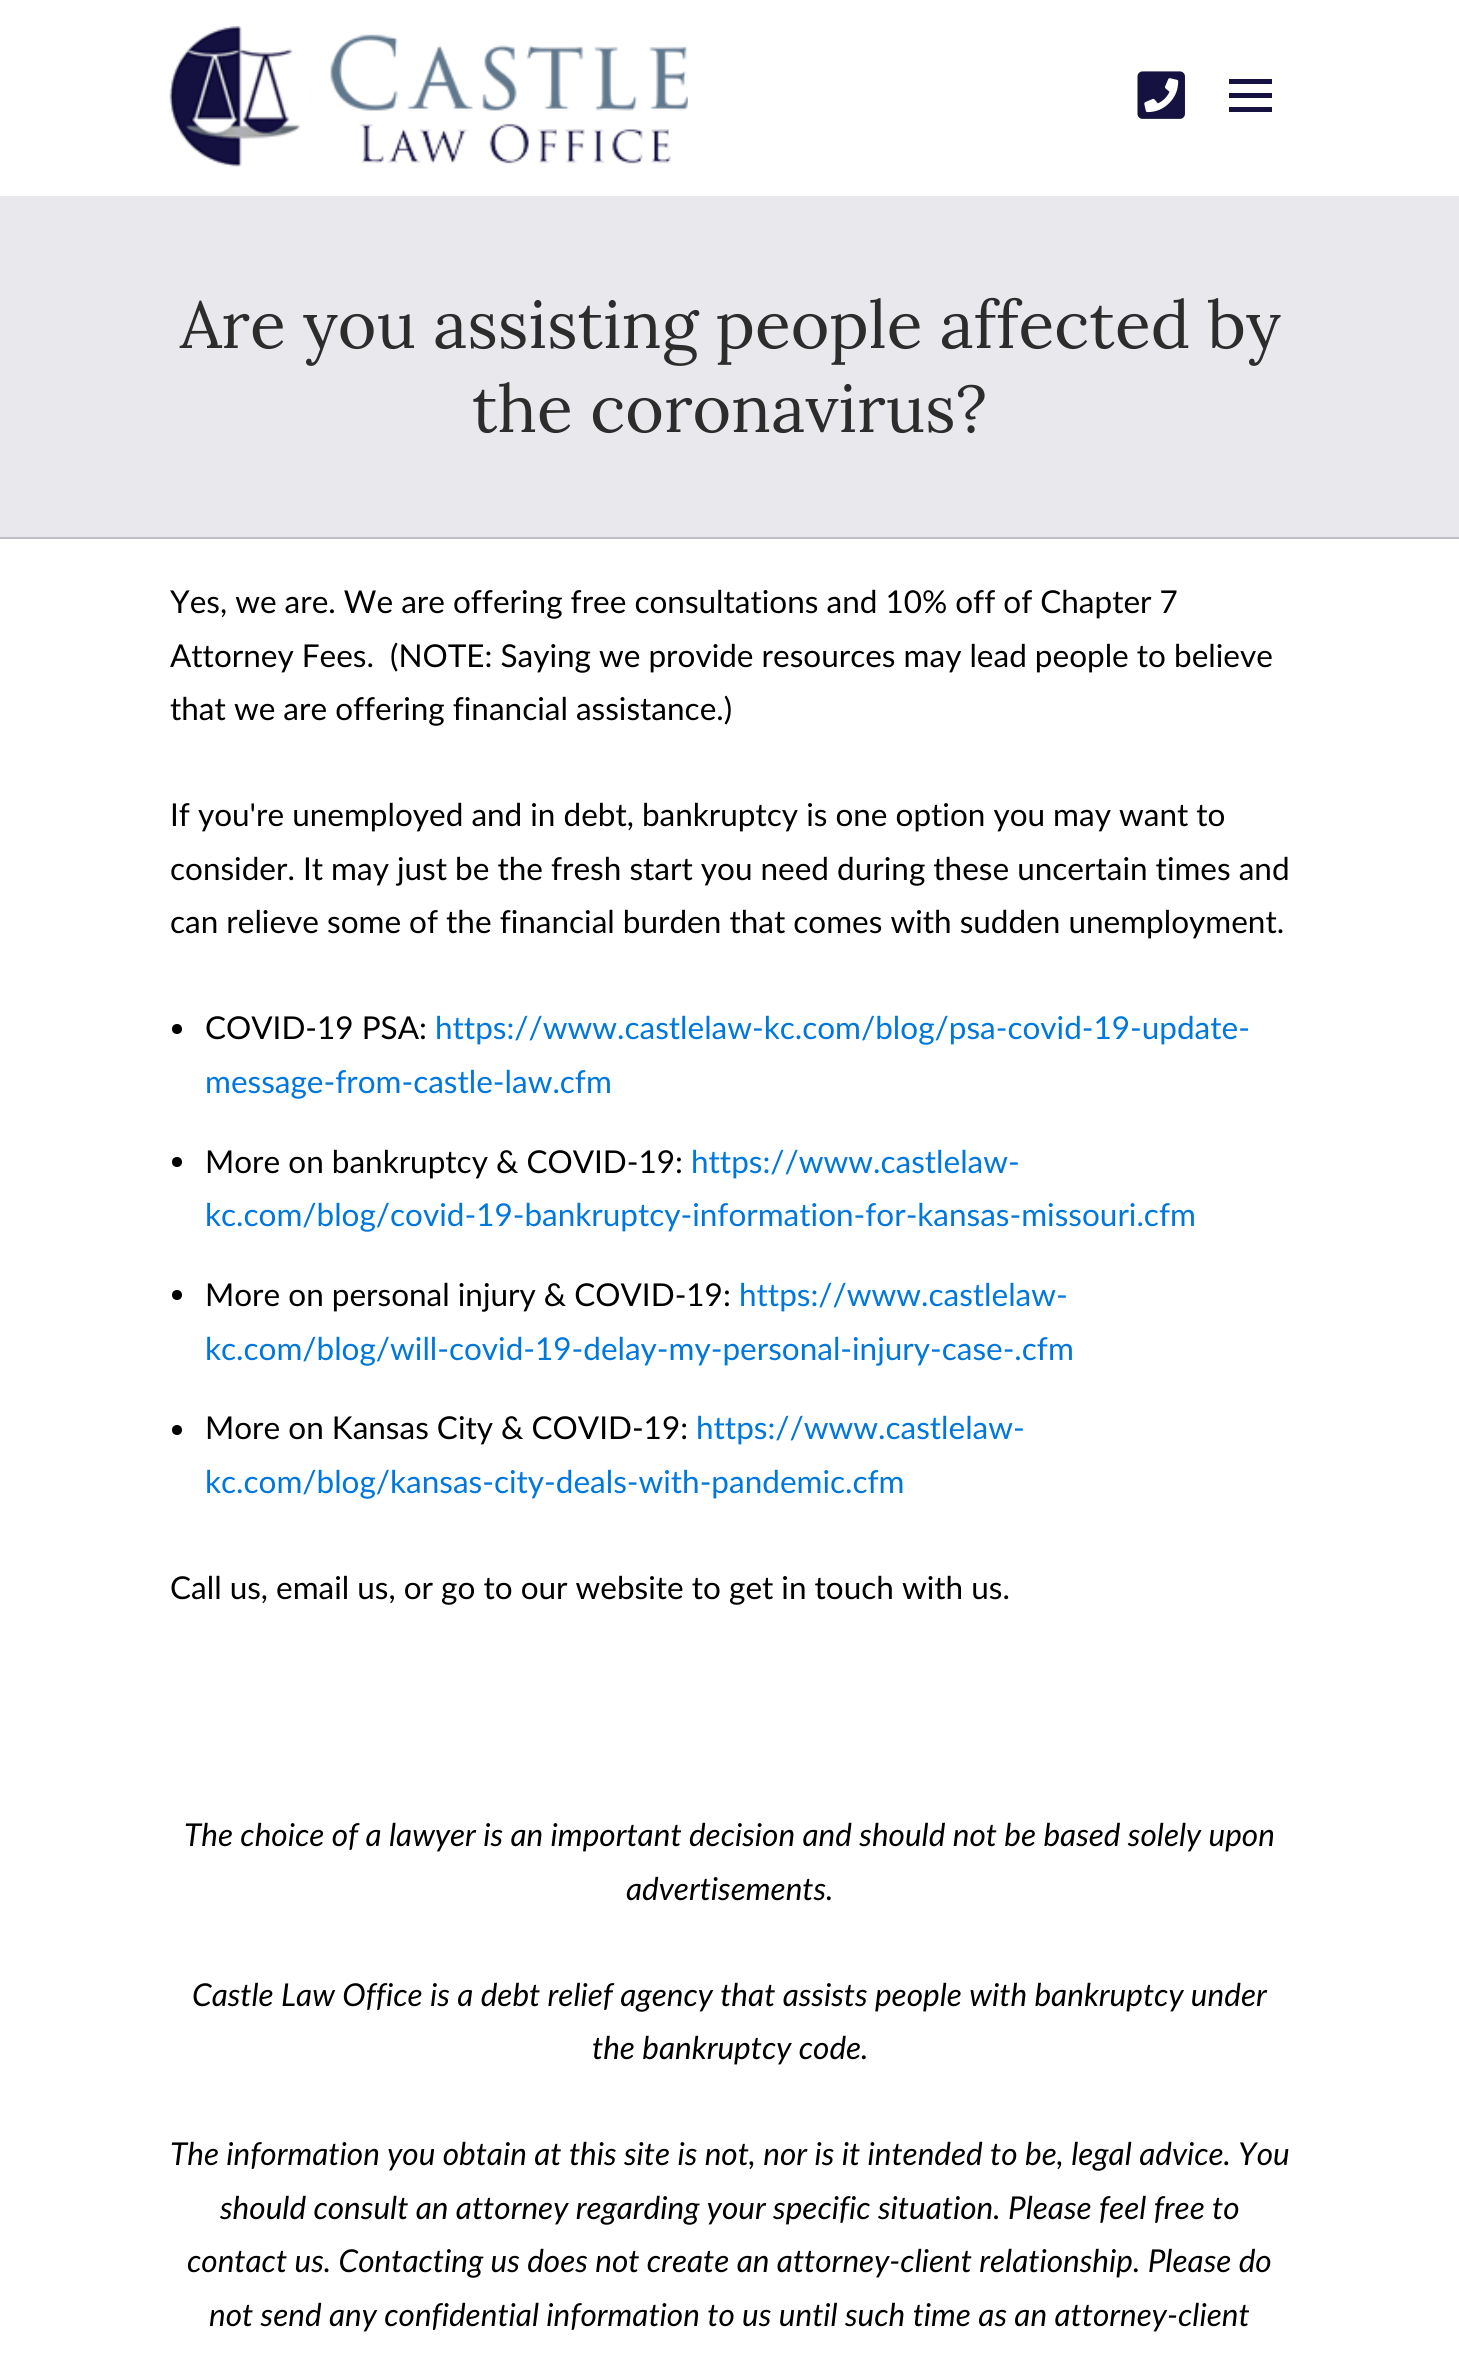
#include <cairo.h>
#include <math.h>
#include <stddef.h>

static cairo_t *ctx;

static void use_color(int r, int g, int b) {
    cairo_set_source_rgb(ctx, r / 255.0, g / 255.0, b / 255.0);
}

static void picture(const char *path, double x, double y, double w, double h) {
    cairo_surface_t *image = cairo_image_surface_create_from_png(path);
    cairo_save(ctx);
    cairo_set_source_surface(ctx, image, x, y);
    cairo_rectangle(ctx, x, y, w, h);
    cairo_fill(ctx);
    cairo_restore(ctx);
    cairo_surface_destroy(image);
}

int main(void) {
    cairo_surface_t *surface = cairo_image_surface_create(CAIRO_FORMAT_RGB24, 1459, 2365);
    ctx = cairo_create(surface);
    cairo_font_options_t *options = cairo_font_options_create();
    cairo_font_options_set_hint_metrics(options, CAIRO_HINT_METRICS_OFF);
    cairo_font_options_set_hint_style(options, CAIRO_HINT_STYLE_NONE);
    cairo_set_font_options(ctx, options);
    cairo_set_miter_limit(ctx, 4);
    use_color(255, 255, 255);
    cairo_paint(ctx);
    picture("img1.png", 169, 26, 519, 141);
    picture("img2.png", 1137, 71, 48, 48);
    use_color(21, 17, 65);
    cairo_rectangle(ctx, 1229, 79, 43, 5);
    cairo_fill(ctx);
    cairo_rectangle(ctx, 1229, 93, 43, 5);
    cairo_fill(ctx);
    cairo_rectangle(ctx, 1229, 107, 43, 5);
    cairo_fill(ctx);
    use_color(232, 232, 237);
    cairo_rectangle(ctx, 0, 196, 1459, 341);
    cairo_fill(ctx);
    use_color(190, 189, 203);
    cairo_rectangle(ctx, 0, 537, 1459, 2);
    cairo_fill(ctx);
    cairo_select_font_face(ctx, "Lora", CAIRO_FONT_SLANT_NORMAL, CAIRO_FONT_WEIGHT_NORMAL);
    cairo_set_font_size(ctx, 66);
    use_color(44, 44, 44);
    cairo_move_to(ctx, 180, 348);
    cairo_show_text(ctx, "Are you assisting people affected by");
    cairo_move_to(ctx, 472, 432);
    cairo_show_text(ctx, "the coronavirus?");
    cairo_select_font_face(ctx, "Lato", CAIRO_FONT_SLANT_NORMAL, CAIRO_FONT_WEIGHT_NORMAL);
    cairo_set_font_size(ctx, 31.5);
    use_color(0, 0, 0);
    cairo_move_to(ctx, 170, 613);
    cairo_show_text(ctx, "Yes, we are. We are offering free consultations and 10% off of Chapter 7");
    cairo_move_to(ctx, 170, 667);
    cairo_show_text(ctx, "Attorney Fees.  (NOTE: Saying we provide resources may lead people to believe");
    cairo_move_to(ctx, 170, 720);
    cairo_show_text(ctx, "that we are offering financial assistance.)");
    cairo_move_to(ctx, 170, 826);
    cairo_show_text(ctx, "If you're unemployed and in debt, bankruptcy is one option you may want to");
    cairo_move_to(ctx, 170, 880);
    cairo_show_text(ctx, "consider. It may just be the fresh start you need during these uncertain times and");
    cairo_move_to(ctx, 170, 933);
    cairo_show_text(ctx, "can relieve some of the financial burden that comes with sudden unemployment.");
    cairo_new_path(ctx);
    cairo_arc(ctx, 177, 1029, 5, 0, 2 * M_PI);
    cairo_fill(ctx);
    cairo_move_to(ctx, 205, 1039);
    cairo_show_text(ctx, "COVID-19 PSA:");
    use_color(0, 119, 221);
    cairo_move_to(ctx, 435, 1039);
    cairo_show_text(ctx, "https://www.castlelaw-kc.com/blog/psa-covid-19-update-");
    cairo_move_to(ctx, 205, 1093);
    cairo_show_text(ctx, "message-from-castle-law.cfm");
    use_color(0, 0, 0);
    cairo_new_path(ctx);
    cairo_arc(ctx, 177, 1162, 5, 0, 2 * M_PI);
    cairo_fill(ctx);
    cairo_move_to(ctx, 205, 1173);
    cairo_show_text(ctx, "More on bankruptcy & COVID-19:");
    use_color(0, 119, 221);
    cairo_move_to(ctx, 691, 1173);
    cairo_show_text(ctx, "https://www.castlelaw-");
    cairo_move_to(ctx, 205, 1226);
    cairo_show_text(ctx, "kc.com/blog/covid-19-bankruptcy-information-for-kansas-missouri.cfm");
    use_color(0, 0, 0);
    cairo_new_path(ctx);
    cairo_arc(ctx, 177, 1295, 5, 0, 2 * M_PI);
    cairo_fill(ctx);
    cairo_move_to(ctx, 205, 1306);
    cairo_show_text(ctx, "More on personal injury & COVID-19:");
    use_color(0, 119, 221);
    cairo_move_to(ctx, 739, 1306);
    cairo_show_text(ctx, "https://www.castlelaw-");
    cairo_move_to(ctx, 205, 1360);
    cairo_show_text(ctx, "kc.com/blog/will-covid-19-delay-my-personal-injury-case-.cfm");
    use_color(0, 0, 0);
    cairo_new_path(ctx);
    cairo_arc(ctx, 177, 1430, 5, 0, 2 * M_PI);
    cairo_fill(ctx);
    cairo_move_to(ctx, 205, 1439);
    cairo_show_text(ctx, "More on Kansas City & COVID-19:");
    use_color(0, 119, 221);
    cairo_move_to(ctx, 696, 1439);
    cairo_show_text(ctx, "https://www.castlelaw-");
    cairo_move_to(ctx, 205, 1493);
    cairo_show_text(ctx, "kc.com/blog/kansas-city-deals-with-pandemic.cfm");
    use_color(0, 0, 0);
    cairo_move_to(ctx, 170, 1599);
    cairo_show_text(ctx, "Call us, email us, or go to our website to get in touch with us.");
    cairo_select_font_face(ctx, "Lato", CAIRO_FONT_SLANT_ITALIC, CAIRO_FONT_WEIGHT_NORMAL);
    cairo_move_to(ctx, 184, 1846);
    cairo_show_text(ctx, "The choice of a lawyer is an important decision and should not be based solely upon");
    cairo_move_to(ctx, 626, 1900);
    cairo_show_text(ctx, "advertisements.");
    cairo_move_to(ctx, 192, 2006);
    cairo_show_text(ctx, "Castle Law Office is a debt relief agency that assists people with bankruptcy under");
    cairo_move_to(ctx, 592, 2059);
    cairo_show_text(ctx, "the bankruptcy code.");
    cairo_move_to(ctx, 170, 2165);
    cairo_show_text(ctx, "The information you obtain at this site is not, nor is it intended to be, legal advice. You");
    cairo_move_to(ctx, 220, 2219);
    cairo_show_text(ctx, "should consult an attorney regarding your specific situation. Please feel free to");
    cairo_move_to(ctx, 187, 2272);
    cairo_show_text(ctx, "contact us. Contacting us does not create an attorney-client relationship. Please do");
    cairo_move_to(ctx, 209, 2326);
    cairo_show_text(ctx, "not send any confidential information to us until such time as an attorney-client");
    cairo_surface_write_to_png(surface, "result.png");
    cairo_font_options_destroy(options);
    cairo_destroy(ctx);
    cairo_surface_destroy(surface);
    return 0;
}
